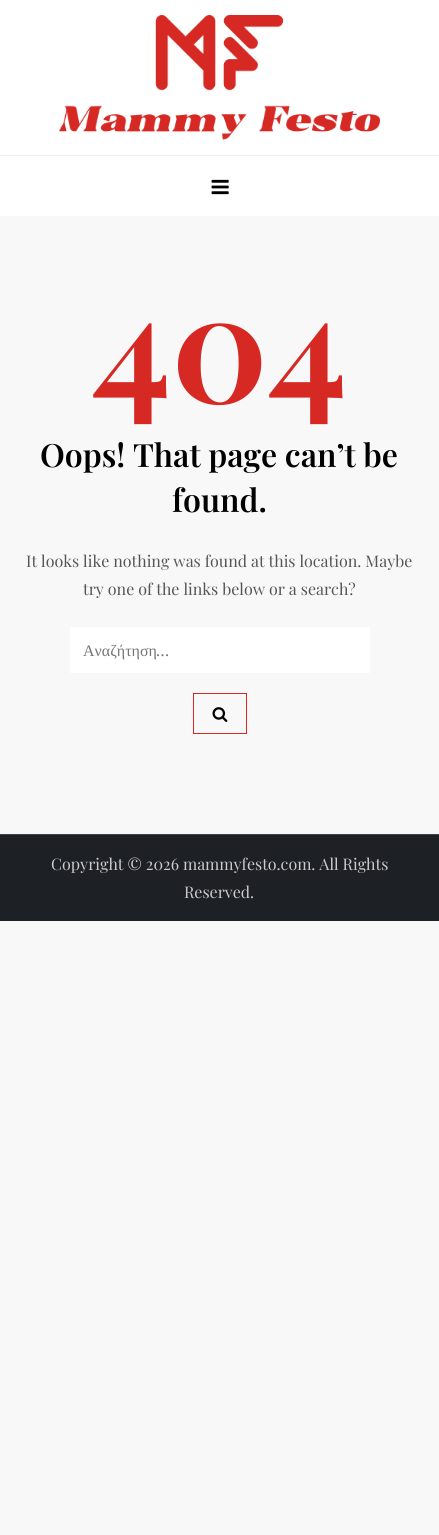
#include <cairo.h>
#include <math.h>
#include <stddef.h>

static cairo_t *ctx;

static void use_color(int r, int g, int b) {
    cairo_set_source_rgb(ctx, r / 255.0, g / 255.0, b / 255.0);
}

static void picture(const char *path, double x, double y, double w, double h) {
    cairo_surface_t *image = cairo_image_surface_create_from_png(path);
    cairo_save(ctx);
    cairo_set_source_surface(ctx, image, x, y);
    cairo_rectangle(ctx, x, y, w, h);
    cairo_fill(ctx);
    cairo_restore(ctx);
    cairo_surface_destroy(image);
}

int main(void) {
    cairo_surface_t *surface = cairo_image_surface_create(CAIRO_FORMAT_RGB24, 439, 1535);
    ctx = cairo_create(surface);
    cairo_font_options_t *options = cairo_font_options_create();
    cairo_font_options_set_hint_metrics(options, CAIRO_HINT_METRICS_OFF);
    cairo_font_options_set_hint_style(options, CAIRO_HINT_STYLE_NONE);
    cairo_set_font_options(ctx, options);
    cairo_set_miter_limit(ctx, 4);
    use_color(248, 248, 248);
    cairo_paint(ctx);
    use_color(255, 255, 255);
    cairo_rectangle(ctx, 0, 0, 439, 216);
    cairo_fill(ctx);
    picture("img1.png", 59, 15, 321, 125);
    use_color(238, 238, 238);
    cairo_rectangle(ctx, 0, 155, 439, 1);
    cairo_fill(ctx);
    picture("img2.png", 211, 179, 18, 16);
    cairo_select_font_face(ctx, "Playfair Display", CAIRO_FONT_SLANT_NORMAL, CAIRO_FONT_WEIGHT_BOLD);
    cairo_set_font_size(ctx, 150);
    use_color(215, 41, 36);
    cairo_move_to(ctx, 92, 403);
    cairo_show_text(ctx, "404");
    cairo_select_font_face(ctx, "Playfair Display SemiBold", CAIRO_FONT_SLANT_NORMAL, CAIRO_FONT_WEIGHT_NORMAL);
    cairo_set_font_size(ctx, 32);
    use_color(0, 0, 0);
    cairo_move_to(ctx, 40, 467);
    cairo_show_text(ctx, "Oops! That page can’t be");
    cairo_move_to(ctx, 172, 512);
    cairo_show_text(ctx, "found.");
    cairo_select_font_face(ctx, "Playfair Display", CAIRO_FONT_SLANT_NORMAL, CAIRO_FONT_WEIGHT_NORMAL);
    cairo_set_font_size(ctx, 16);
    use_color(85, 85, 85);
    cairo_move_to(ctx, 26, 567);
    cairo_show_text(ctx, "It looks like nothing was found at this location. Maybe");
    cairo_move_to(ctx, 83, 595);
    cairo_show_text(ctx, "try one of the links below or a search?");
    use_color(255, 255, 255);
    cairo_rectangle(ctx, 70, 627, 300, 46);
    cairo_fill(ctx);
    cairo_select_font_face(ctx, "Liberation Serif", CAIRO_FONT_SLANT_NORMAL, CAIRO_FONT_WEIGHT_NORMAL);
    use_color(117, 117, 117);
    cairo_move_to(ctx, 83, 656);
    cairo_show_text(ctx, "Αναζήτηση");
    cairo_select_font_face(ctx, "Playfair Display", CAIRO_FONT_SLANT_NORMAL, CAIRO_FONT_WEIGHT_NORMAL);
    cairo_move_to(ctx, 156, 656);
    cairo_show_text(ctx, "…");
    cairo_rectangle(ctx, 193.5, 693.5, 53, 40);
    use_color(215, 41, 36);
    cairo_set_line_width(ctx, 1);
    cairo_stroke(ctx);
    picture("img3.png", 212, 707, 16, 15);
    use_color(29, 32, 36);
    cairo_rectangle(ctx, 0, 835, 439, 86);
    cairo_fill(ctx);
    use_color(63, 65, 69);
    cairo_rectangle(ctx, 0, 834, 439, 1);
    cairo_fill(ctx);
    use_color(204, 204, 204);
    cairo_move_to(ctx, 51, 870);
    cairo_show_text(ctx, "Copyright © 2026 mammyfesto.com. All Rights");
    cairo_move_to(ctx, 184, 898);
    cairo_show_text(ctx, "Reserved.");
    cairo_surface_write_to_png(surface, "result.png");
    cairo_font_options_destroy(options);
    cairo_destroy(ctx);
    cairo_surface_destroy(surface);
    return 0;
}
